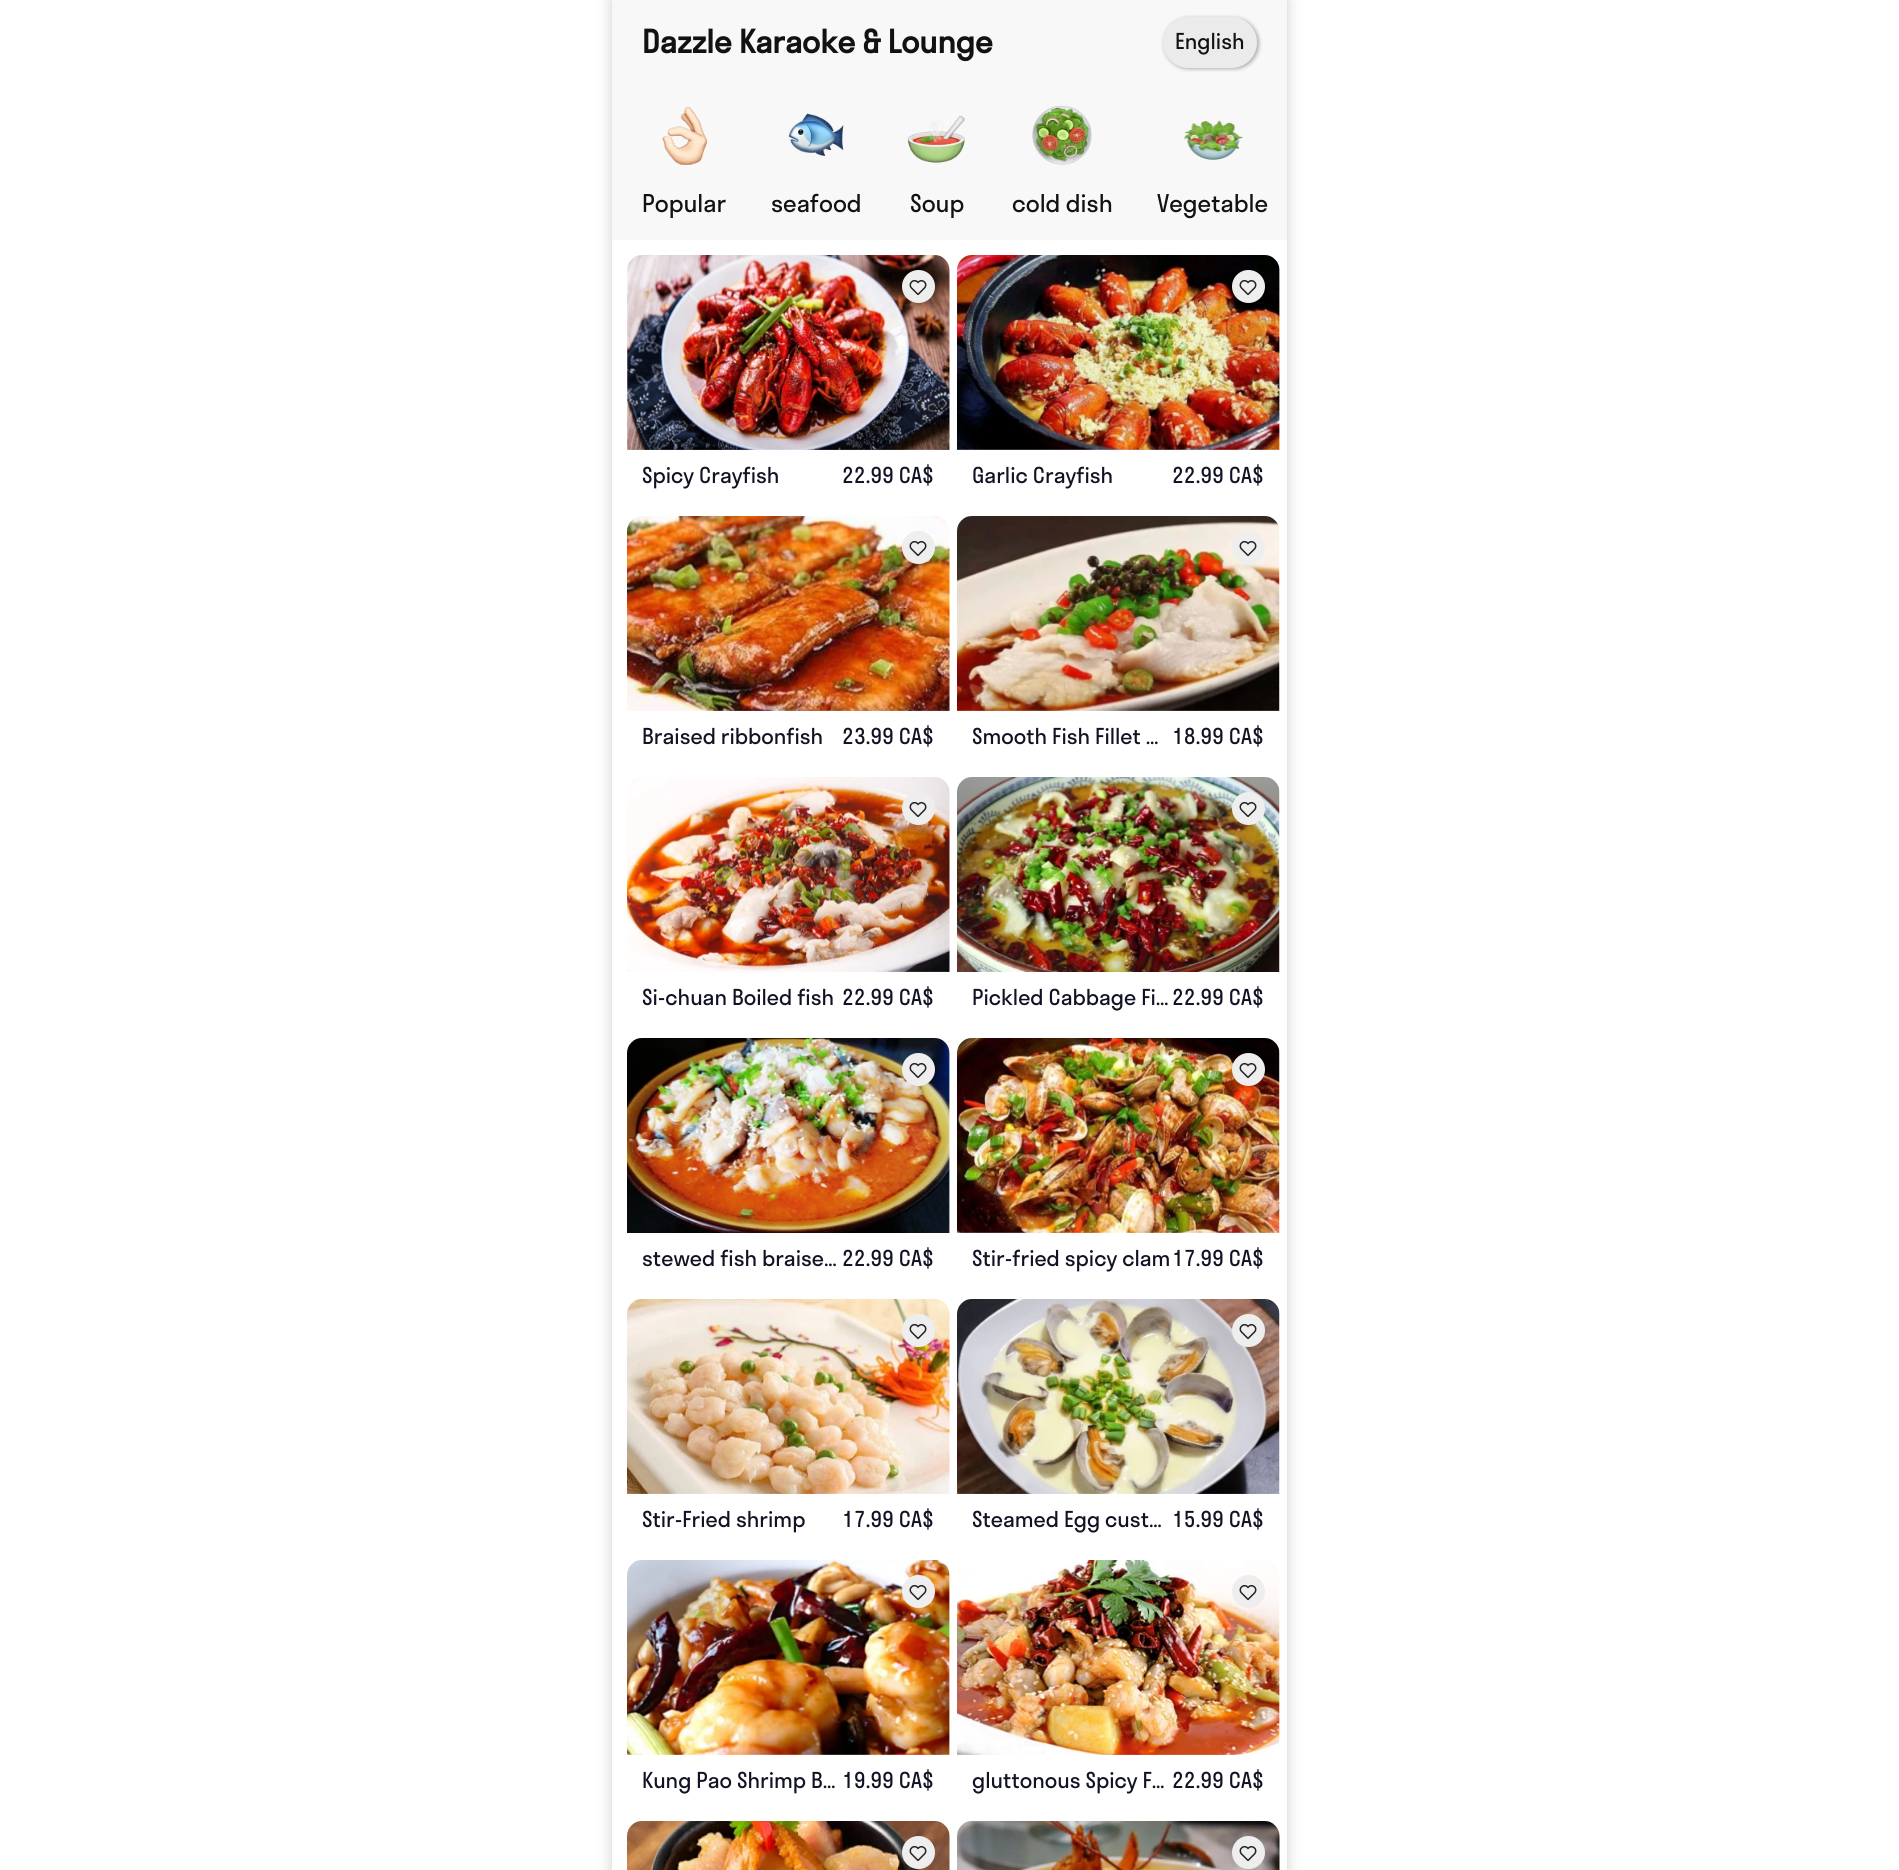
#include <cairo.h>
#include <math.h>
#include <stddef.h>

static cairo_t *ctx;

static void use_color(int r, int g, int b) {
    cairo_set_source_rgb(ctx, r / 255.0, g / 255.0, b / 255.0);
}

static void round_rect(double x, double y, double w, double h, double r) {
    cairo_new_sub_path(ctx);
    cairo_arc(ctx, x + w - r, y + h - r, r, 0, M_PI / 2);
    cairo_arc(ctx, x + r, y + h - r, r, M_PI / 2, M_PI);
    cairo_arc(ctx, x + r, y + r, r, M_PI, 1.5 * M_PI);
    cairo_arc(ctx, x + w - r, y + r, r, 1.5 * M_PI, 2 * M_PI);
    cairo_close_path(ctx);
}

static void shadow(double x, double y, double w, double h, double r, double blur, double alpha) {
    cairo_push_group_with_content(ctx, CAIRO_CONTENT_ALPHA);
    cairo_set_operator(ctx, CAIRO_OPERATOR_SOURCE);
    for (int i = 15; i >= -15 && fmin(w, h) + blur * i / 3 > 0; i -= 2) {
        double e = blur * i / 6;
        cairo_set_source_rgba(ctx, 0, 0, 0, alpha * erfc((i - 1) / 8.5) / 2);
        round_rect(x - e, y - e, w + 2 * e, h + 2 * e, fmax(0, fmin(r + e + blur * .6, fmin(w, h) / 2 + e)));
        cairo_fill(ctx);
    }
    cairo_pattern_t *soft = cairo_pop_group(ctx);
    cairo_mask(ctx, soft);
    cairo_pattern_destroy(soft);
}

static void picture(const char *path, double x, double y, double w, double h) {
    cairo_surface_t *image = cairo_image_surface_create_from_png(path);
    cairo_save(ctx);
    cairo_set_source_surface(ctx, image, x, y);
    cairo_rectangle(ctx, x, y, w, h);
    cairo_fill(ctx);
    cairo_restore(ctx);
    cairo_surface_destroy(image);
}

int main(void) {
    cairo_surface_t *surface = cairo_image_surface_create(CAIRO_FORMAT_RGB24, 1899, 1870);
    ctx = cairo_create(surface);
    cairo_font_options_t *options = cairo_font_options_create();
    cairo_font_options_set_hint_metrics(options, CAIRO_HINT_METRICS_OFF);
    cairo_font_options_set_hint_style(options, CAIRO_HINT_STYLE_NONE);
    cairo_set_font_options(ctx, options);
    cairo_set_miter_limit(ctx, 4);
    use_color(255, 255, 255);
    cairo_paint(ctx);
    use_color(0, 0, 0);
    shadow(612, 0, 675, 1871, 0, 7.5, 0.2);
    use_color(248, 248, 248);
    cairo_rectangle(ctx, 612, 0, 675, 240);
    cairo_fill(ctx);
    cairo_select_font_face(ctx, "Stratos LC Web", CAIRO_FONT_SLANT_NORMAL, CAIRO_FONT_WEIGHT_BOLD);
    cairo_set_font_size(ctx, 31.25);
    use_color(18, 18, 18);
    cairo_move_to(ctx, 642, 53);
    cairo_show_text(ctx, "Dazzle Karaoke & Lounge");
    use_color(0, 0, 0);
    shadow(1164, 18, 95, 51, 25.5, 2, 0.3);
    use_color(235, 235, 235);
    round_rect(1163, 17, 94, 51, 25.5);
    cairo_fill(ctx);
    cairo_select_font_face(ctx, "Stratos LC Web", CAIRO_FONT_SLANT_NORMAL, CAIRO_FONT_WEIGHT_NORMAL);
    cairo_set_font_size(ctx, 21.5);
    use_color(18, 18, 18);
    cairo_move_to(ctx, 1175, 49);
    cairo_show_text(ctx, "English");
    picture("img1.png", 662, 106, 45, 59);
    cairo_set_font_size(ctx, 24);
    cairo_move_to(ctx, 642, 212);
    cairo_show_text(ctx, "Popular");
    picture("img2.png", 788, 113, 56, 43);
    cairo_move_to(ctx, 771, 212);
    cairo_show_text(ctx, "seafood");
    picture("img3.png", 907, 115, 58, 48);
    cairo_move_to(ctx, 910, 212);
    cairo_show_text(ctx, "Soup");
    picture("img4.png", 1032, 105, 60, 60);
    cairo_move_to(ctx, 1012, 212);
    cairo_show_text(ctx, "cold dish");
    picture("img5.png", 1184, 120, 59, 40);
    cairo_move_to(ctx, 1157, 212);
    cairo_show_text(ctx, "Vegetable");
    use_color(255, 255, 255);
    cairo_rectangle(ctx, 612, 240, 675, 1630);
    cairo_fill(ctx);
    picture("img6.png", 627, 255, 323, 195);
    use_color(238, 238, 238);
    cairo_arc(ctx, 918.5, 286.5, 16.5, 0, 2 * M_PI);
    cairo_fill(ctx);
    picture("img7.png", 909, 280, 18, 16);
    cairo_set_font_size(ctx, 21.5);
    use_color(17, 18, 36);
    cairo_move_to(ctx, 642, 483);
    cairo_show_text(ctx, "Spicy Crayfish");
    cairo_move_to(ctx, 842, 483);
    cairo_show_text(ctx, "22.99 CA$");
    picture("img8.png", 957, 255, 323, 195);
    use_color(238, 238, 238);
    cairo_arc(ctx, 1248.5, 286.5, 16.5, 0, 2 * M_PI);
    cairo_fill(ctx);
    picture("img7.png", 1239, 280, 18, 16);
    use_color(17, 18, 36);
    cairo_move_to(ctx, 972, 483);
    cairo_show_text(ctx, "Garlic Crayfish");
    cairo_move_to(ctx, 1172, 483);
    cairo_show_text(ctx, "22.99 CA$");
    picture("img9.png", 627, 516, 323, 195);
    use_color(238, 238, 238);
    cairo_arc(ctx, 918.5, 547.5, 16.5, 0, 2 * M_PI);
    cairo_fill(ctx);
    picture("img7.png", 909, 541, 18, 16);
    use_color(17, 18, 36);
    cairo_move_to(ctx, 642, 744);
    cairo_show_text(ctx, "Braised ribbonfish");
    cairo_move_to(ctx, 842, 744);
    cairo_show_text(ctx, "23.99 CA$");
    picture("img10.png", 957, 516, 323, 195);
    use_color(238, 238, 238);
    cairo_arc(ctx, 1248.5, 547.5, 16.5, 0, 2 * M_PI);
    cairo_fill(ctx);
    picture("img7.png", 1239, 541, 18, 16);
    use_color(17, 18, 36);
    cairo_move_to(ctx, 972, 744);
    cairo_show_text(ctx, "Smooth Fish Fillet …");
    cairo_move_to(ctx, 1172, 744);
    cairo_show_text(ctx, "18.99 CA$");
    picture("img11.png", 627, 777, 323, 195);
    use_color(238, 238, 238);
    cairo_arc(ctx, 918.5, 808.5, 16.5, 0, 2 * M_PI);
    cairo_fill(ctx);
    picture("img7.png", 909, 802, 18, 16);
    use_color(17, 18, 36);
    cairo_move_to(ctx, 642, 1005);
    cairo_show_text(ctx, "Si-chuan Boiled fish");
    cairo_move_to(ctx, 842, 1005);
    cairo_show_text(ctx, "22.99 CA$");
    picture("img12.png", 957, 777, 323, 195);
    use_color(238, 238, 238);
    cairo_arc(ctx, 1248.5, 808.5, 16.5, 0, 2 * M_PI);
    cairo_fill(ctx);
    picture("img7.png", 1239, 802, 18, 16);
    use_color(17, 18, 36);
    cairo_move_to(ctx, 972, 1005);
    cairo_show_text(ctx, "Pickled Cabbage Fi…");
    cairo_move_to(ctx, 1172, 1005);
    cairo_show_text(ctx, "22.99 CA$");
    picture("img13.png", 627, 1038, 323, 195);
    use_color(238, 238, 238);
    cairo_arc(ctx, 918.5, 1069.5, 16.5, 0, 2 * M_PI);
    cairo_fill(ctx);
    picture("img7.png", 909, 1063, 18, 16);
    use_color(17, 18, 36);
    cairo_move_to(ctx, 642, 1266);
    cairo_show_text(ctx, "stewed fish braise…");
    cairo_move_to(ctx, 842, 1266);
    cairo_show_text(ctx, "22.99 CA$");
    picture("img14.png", 957, 1038, 323, 195);
    use_color(238, 238, 238);
    cairo_arc(ctx, 1248.5, 1069.5, 16.5, 0, 2 * M_PI);
    cairo_fill(ctx);
    picture("img7.png", 1239, 1063, 18, 16);
    use_color(17, 18, 36);
    cairo_move_to(ctx, 972, 1266);
    cairo_show_text(ctx, "Stir-fried spicy clam");
    cairo_move_to(ctx, 1172, 1266);
    cairo_show_text(ctx, "17.99 CA$");
    picture("img15.png", 627, 1299, 323, 195);
    use_color(238, 238, 238);
    cairo_arc(ctx, 918.5, 1330.5, 16.5, 0, 2 * M_PI);
    cairo_fill(ctx);
    picture("img7.png", 909, 1324, 18, 16);
    use_color(17, 18, 36);
    cairo_move_to(ctx, 642, 1527);
    cairo_show_text(ctx, "Stir-Fried shrimp");
    cairo_move_to(ctx, 842, 1527);
    cairo_show_text(ctx, "17.99 CA$");
    picture("img16.png", 957, 1299, 323, 195);
    use_color(238, 238, 238);
    cairo_arc(ctx, 1248.5, 1330.5, 16.5, 0, 2 * M_PI);
    cairo_fill(ctx);
    picture("img7.png", 1239, 1324, 18, 16);
    use_color(17, 18, 36);
    cairo_move_to(ctx, 972, 1527);
    cairo_show_text(ctx, "Steamed Egg cust…");
    cairo_move_to(ctx, 1172, 1527);
    cairo_show_text(ctx, "15.99 CA$");
    picture("img17.png", 627, 1560, 323, 195);
    use_color(238, 238, 238);
    cairo_arc(ctx, 918.5, 1591.5, 16.5, 0, 2 * M_PI);
    cairo_fill(ctx);
    picture("img7.png", 909, 1585, 18, 16);
    use_color(17, 18, 36);
    cairo_move_to(ctx, 642, 1788);
    cairo_show_text(ctx, "Kung Pao Shrimp B…");
    cairo_move_to(ctx, 842, 1788);
    cairo_show_text(ctx, "19.99 CA$");
    picture("img18.png", 957, 1560, 323, 195);
    use_color(238, 238, 238);
    cairo_arc(ctx, 1248.5, 1591.5, 16.5, 0, 2 * M_PI);
    cairo_fill(ctx);
    picture("img7.png", 1239, 1585, 18, 16);
    use_color(17, 18, 36);
    cairo_move_to(ctx, 972, 1788);
    cairo_show_text(ctx, "gluttonous Spicy F…");
    cairo_move_to(ctx, 1172, 1788);
    cairo_show_text(ctx, "22.99 CA$");
    picture("img19.png", 627, 1821, 323, 49);
    use_color(238, 238, 238);
    cairo_arc(ctx, 918.5, 1852.5, 16.5, 0, 2 * M_PI);
    cairo_fill(ctx);
    picture("img7.png", 909, 1846, 18, 16);
    picture("img20.png", 957, 1821, 323, 49);
    cairo_arc(ctx, 1248.5, 1852.5, 16.5, 0, 2 * M_PI);
    cairo_fill(ctx);
    picture("img7.png", 1239, 1846, 18, 16);
    cairo_surface_write_to_png(surface, "result.png");
    cairo_font_options_destroy(options);
    cairo_destroy(ctx);
    cairo_surface_destroy(surface);
    return 0;
}
